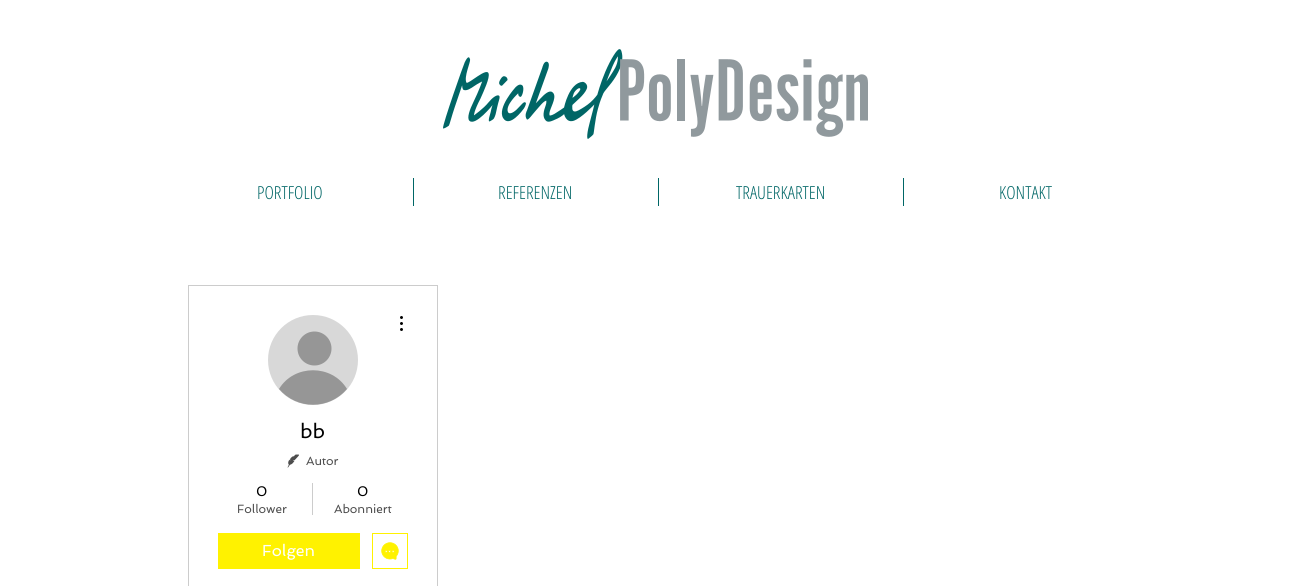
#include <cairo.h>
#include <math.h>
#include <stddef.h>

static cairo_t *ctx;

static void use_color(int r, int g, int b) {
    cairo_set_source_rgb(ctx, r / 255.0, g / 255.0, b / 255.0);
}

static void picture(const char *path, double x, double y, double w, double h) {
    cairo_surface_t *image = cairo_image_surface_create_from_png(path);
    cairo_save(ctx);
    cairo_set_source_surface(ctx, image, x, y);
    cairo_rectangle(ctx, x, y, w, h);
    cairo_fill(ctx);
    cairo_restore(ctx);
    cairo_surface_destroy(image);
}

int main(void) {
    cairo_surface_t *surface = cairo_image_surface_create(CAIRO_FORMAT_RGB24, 1315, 586);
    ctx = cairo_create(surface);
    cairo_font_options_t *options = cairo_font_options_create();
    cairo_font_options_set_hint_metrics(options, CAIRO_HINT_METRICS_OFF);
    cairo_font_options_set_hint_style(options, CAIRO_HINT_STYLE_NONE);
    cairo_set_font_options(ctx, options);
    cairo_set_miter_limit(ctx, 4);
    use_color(255, 255, 255);
    cairo_paint(ctx);
    picture("img1.png", 443, 49, 425, 90);
    cairo_select_font_face(ctx, "Open Sans Condensed Light", CAIRO_FONT_SLANT_NORMAL, CAIRO_FONT_WEIGHT_NORMAL);
    cairo_set_font_size(ctx, 18);
    use_color(0, 102, 102);
    cairo_move_to(ctx, 257, 199);
    cairo_show_text(ctx, "PORTFOLIO");
    cairo_rectangle(ctx, 413, 178, 1, 28);
    cairo_fill(ctx);
    cairo_move_to(ctx, 498, 199);
    cairo_show_text(ctx, "REFERENZEN");
    cairo_rectangle(ctx, 658, 178, 1, 28);
    cairo_fill(ctx);
    cairo_move_to(ctx, 736, 199);
    cairo_show_text(ctx, "TRAUERKARTEN");
    cairo_rectangle(ctx, 903, 178, 1, 28);
    cairo_fill(ctx);
    cairo_move_to(ctx, 999, 199);
    cairo_show_text(ctx, "KONTAKT");
    cairo_rectangle(ctx, 188.5, 285.5, 249, 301);
    use_color(204, 204, 204);
    cairo_set_line_width(ctx, 1);
    cairo_stroke(ctx);
    use_color(216, 216, 216);
    cairo_arc(ctx, 313, 360, 45, 0, 2 * M_PI);
    cairo_fill(ctx);
    use_color(150, 150, 150);
    cairo_arc(ctx, 314.5, 348.5, 17, 0, 2 * M_PI);
    cairo_fill(ctx);
    cairo_new_path(ctx);
    cairo_move_to(ctx, 347, 389);
    cairo_curve_to(ctx, 329, 410, 297, 410, 279, 389);
    cairo_curve_to(ctx, 294, 364, 332, 364, 347, 389);
    cairo_close_path(ctx);
    cairo_fill(ctx);
    picture("img2.png", 400, 316, 3, 15);
    cairo_select_font_face(ctx, "Spinnaker", CAIRO_FONT_SLANT_NORMAL, CAIRO_FONT_WEIGHT_NORMAL);
    cairo_set_font_size(ctx, 20);
    use_color(0, 0, 0);
    cairo_move_to(ctx, 300, 438);
    cairo_show_text(ctx, "bb");
    picture("img3.png", 287, 454, 12, 14);
    cairo_set_font_size(ctx, 12);
    use_color(77, 77, 77);
    cairo_move_to(ctx, 306, 465);
    cairo_show_text(ctx, "Autor");
    cairo_set_font_size(ctx, 14);
    use_color(0, 0, 0);
    cairo_move_to(ctx, 256, 496);
    cairo_show_text(ctx, "0");
    cairo_set_font_size(ctx, 12);
    use_color(77, 77, 77);
    cairo_move_to(ctx, 237, 513);
    cairo_show_text(ctx, "Follower");
    use_color(204, 204, 204);
    cairo_rectangle(ctx, 312, 483, 1, 32);
    cairo_fill(ctx);
    cairo_set_font_size(ctx, 14);
    use_color(0, 0, 0);
    cairo_move_to(ctx, 357, 496);
    cairo_show_text(ctx, "0");
    cairo_set_font_size(ctx, 12);
    use_color(77, 77, 77);
    cairo_move_to(ctx, 334, 513);
    cairo_show_text(ctx, "Abonniert");
    use_color(255, 242, 0);
    cairo_rectangle(ctx, 218, 533, 142, 36);
    cairo_fill(ctx);
    cairo_set_font_size(ctx, 16);
    use_color(255, 255, 255);
    cairo_move_to(ctx, 262, 556);
    cairo_show_text(ctx, "Folgen");
    cairo_rectangle(ctx, 372.5, 533.5, 35, 35);
    use_color(255, 242, 0);
    cairo_stroke(ctx);
    picture("img4.png", 381, 542, 18, 18);
    cairo_surface_write_to_png(surface, "result.png");
    cairo_font_options_destroy(options);
    cairo_destroy(ctx);
    cairo_surface_destroy(surface);
    return 0;
}
